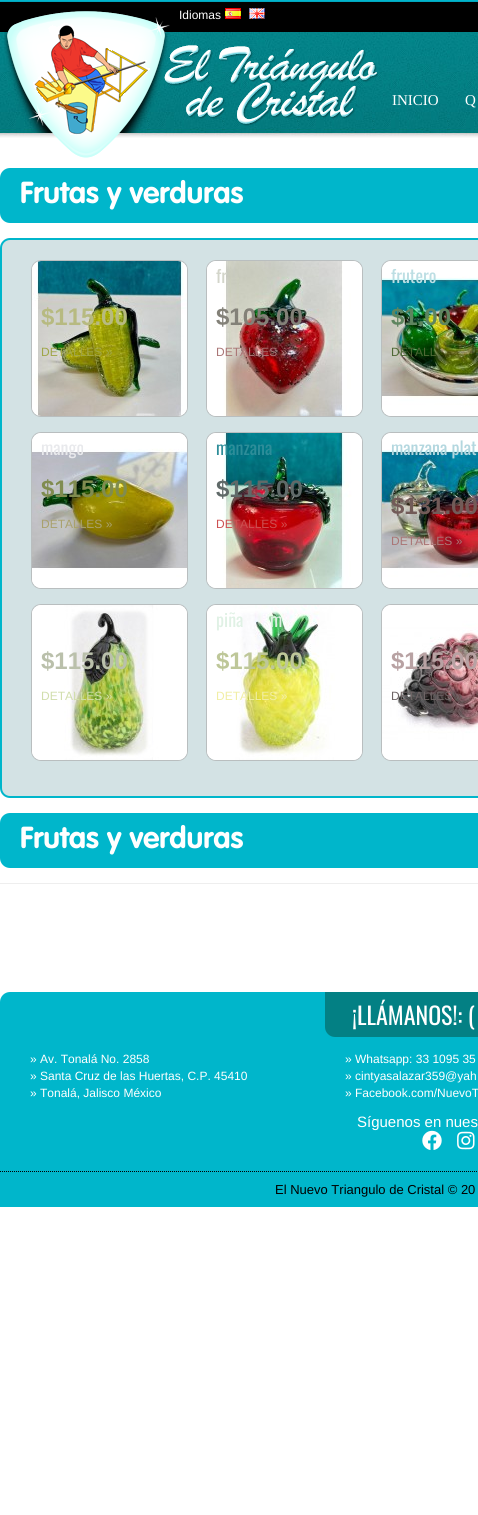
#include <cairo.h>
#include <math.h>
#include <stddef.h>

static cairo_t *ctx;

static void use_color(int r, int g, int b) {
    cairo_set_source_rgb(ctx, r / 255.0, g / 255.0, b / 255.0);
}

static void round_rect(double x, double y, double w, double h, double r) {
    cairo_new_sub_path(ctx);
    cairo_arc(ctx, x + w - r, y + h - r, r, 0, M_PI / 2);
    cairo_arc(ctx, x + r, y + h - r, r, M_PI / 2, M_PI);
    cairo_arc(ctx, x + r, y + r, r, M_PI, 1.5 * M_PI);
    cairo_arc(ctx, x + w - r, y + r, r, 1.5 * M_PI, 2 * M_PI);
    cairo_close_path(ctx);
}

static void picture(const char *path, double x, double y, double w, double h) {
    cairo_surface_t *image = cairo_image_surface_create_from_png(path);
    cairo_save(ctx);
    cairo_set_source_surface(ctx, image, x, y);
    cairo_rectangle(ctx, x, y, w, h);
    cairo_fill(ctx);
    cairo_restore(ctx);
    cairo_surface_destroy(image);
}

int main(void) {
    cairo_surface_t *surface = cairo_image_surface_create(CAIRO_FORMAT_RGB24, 478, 1515);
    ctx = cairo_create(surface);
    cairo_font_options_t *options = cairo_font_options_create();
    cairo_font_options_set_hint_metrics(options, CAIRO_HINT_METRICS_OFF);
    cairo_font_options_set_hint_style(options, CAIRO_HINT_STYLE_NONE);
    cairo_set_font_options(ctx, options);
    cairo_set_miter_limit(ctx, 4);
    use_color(255, 255, 255);
    cairo_paint(ctx);
    picture("img1.png", 0, 0, 478, 138);
    picture("img4.png", 4, 11, 374, 147);
    picture("img5.png", 4, 11, 374, 147);
    cairo_select_font_face(ctx, "Liberation Sans", CAIRO_FONT_SLANT_NORMAL, CAIRO_FONT_WEIGHT_NORMAL);
    cairo_set_font_size(ctx, 12);
    use_color(255, 255, 255);
    cairo_move_to(ctx, 179, 19);
    cairo_show_text(ctx, "Idiomas");
    picture("img2.png", 225, 8, 16, 11);
    picture("img3.png", 249, 8, 16, 11);
    cairo_select_font_face(ctx, "Liberation Serif", CAIRO_FONT_SLANT_NORMAL, CAIRO_FONT_WEIGHT_NORMAL);
    cairo_set_font_size(ctx, 15);
    cairo_move_to(ctx, 392, 105);
    cairo_show_text(ctx, "INICIO");
    cairo_move_to(ctx, 465, 105);
    cairo_show_text(ctx, "Q");
    use_color(0, 182, 203);
    round_rect(0, 168, 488, 55, 10);
    cairo_fill(ctx);
    cairo_select_font_face(ctx, "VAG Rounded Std", CAIRO_FONT_SLANT_NORMAL, CAIRO_FONT_WEIGHT_BOLD);
    cairo_set_font_size(ctx, 30);
    use_color(255, 255, 255);
    cairo_move_to(ctx, 20, 203);
    cairo_show_text(ctx, "Frutas y verduras");
    use_color(211, 226, 228);
    round_rect(1, 239, 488, 558, 9);
    cairo_fill_preserve(ctx);
    use_color(0, 182, 203);
    cairo_stroke(ctx);
    use_color(255, 255, 255);
    round_rect(31.5, 260.5, 156, 156, 9.5);
    cairo_fill_preserve(ctx);
    use_color(185, 190, 191);
    cairo_set_line_width(ctx, 1);
    cairo_stroke(ctx);
    picture("img6.png", 32, 261, 155, 155);
    cairo_select_font_face(ctx, "Liberation Sans", CAIRO_FONT_SLANT_NORMAL, CAIRO_FONT_WEIGHT_BOLD);
    cairo_set_font_size(ctx, 24);
    use_color(183, 186, 129);
    cairo_move_to(ctx, 41, 325);
    cairo_show_text(ctx, "$115.00");
    cairo_select_font_face(ctx, "Liberation Sans", CAIRO_FONT_SLANT_NORMAL, CAIRO_FONT_WEIGHT_NORMAL);
    cairo_set_font_size(ctx, 12);
    use_color(160, 165, 72);
    cairo_move_to(ctx, 41, 356);
    cairo_show_text(ctx, "DETALLES »");
    use_color(255, 255, 255);
    round_rect(206.5, 260.5, 156, 156, 9.5);
    cairo_fill_preserve(ctx);
    use_color(185, 190, 191);
    cairo_stroke(ctx);
    picture("img7.png", 207, 261, 155, 155);
    cairo_select_font_face(ctx, "Oswald", CAIRO_FONT_SLANT_NORMAL, CAIRO_FONT_WEIGHT_NORMAL);
    cairo_set_font_size(ctx, 18);
    use_color(211, 213, 202);
    cairo_move_to(ctx, 216, 283);
    cairo_show_text(ctx, "fr");
    cairo_select_font_face(ctx, "Liberation Sans", CAIRO_FONT_SLANT_NORMAL, CAIRO_FONT_WEIGHT_BOLD);
    cairo_set_font_size(ctx, 24);
    use_color(131, 129, 120);
    cairo_move_to(ctx, 216, 325);
    cairo_show_text(ctx, "$105.00");
    cairo_select_font_face(ctx, "Liberation Sans", CAIRO_FONT_SLANT_NORMAL, CAIRO_FONT_WEIGHT_NORMAL);
    cairo_set_font_size(ctx, 12);
    use_color(170, 118, 118);
    cairo_move_to(ctx, 216, 356);
    cairo_show_text(ctx, "DETALLES »");
    use_color(255, 255, 255);
    round_rect(381.5, 260.5, 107, 156, 9.5);
    cairo_fill_preserve(ctx);
    use_color(185, 190, 191);
    cairo_stroke(ctx);
    picture("img8.png", 382, 261, 96, 155);
    cairo_select_font_face(ctx, "Oswald", CAIRO_FONT_SLANT_NORMAL, CAIRO_FONT_WEIGHT_NORMAL);
    cairo_set_font_size(ctx, 18);
    use_color(188, 222, 227);
    cairo_move_to(ctx, 391, 283);
    cairo_show_text(ctx, "frutero");
    cairo_select_font_face(ctx, "Liberation Sans", CAIRO_FONT_SLANT_NORMAL, CAIRO_FONT_WEIGHT_BOLD);
    cairo_set_font_size(ctx, 24);
    use_color(94, 133, 95);
    cairo_move_to(ctx, 391, 325);
    cairo_show_text(ctx, "$1.00");
    cairo_select_font_face(ctx, "Liberation Sans", CAIRO_FONT_SLANT_NORMAL, CAIRO_FONT_WEIGHT_NORMAL);
    cairo_set_font_size(ctx, 12);
    use_color(78, 104, 53);
    cairo_move_to(ctx, 391, 356);
    cairo_show_text(ctx, "DETALL");
    use_color(255, 255, 255);
    round_rect(31.5, 432.5, 156, 156, 9.5);
    cairo_fill_preserve(ctx);
    use_color(185, 190, 191);
    cairo_stroke(ctx);
    picture("img9.png", 32, 433, 155, 155);
    cairo_select_font_face(ctx, "Oswald", CAIRO_FONT_SLANT_NORMAL, CAIRO_FONT_WEIGHT_NORMAL);
    cairo_set_font_size(ctx, 18);
    use_color(232, 233, 236);
    cairo_move_to(ctx, 41, 455);
    cairo_show_text(ctx, "mango");
    cairo_select_font_face(ctx, "Liberation Sans", CAIRO_FONT_SLANT_NORMAL, CAIRO_FONT_WEIGHT_BOLD);
    cairo_set_font_size(ctx, 24);
    use_color(128, 140, 80);
    cairo_move_to(ctx, 41, 497);
    cairo_show_text(ctx, "$115.00");
    cairo_select_font_face(ctx, "Liberation Sans", CAIRO_FONT_SLANT_NORMAL, CAIRO_FONT_WEIGHT_NORMAL);
    cairo_set_font_size(ctx, 12);
    use_color(169, 161, 109);
    cairo_move_to(ctx, 41, 528);
    cairo_show_text(ctx, "DETALLES »");
    use_color(255, 255, 255);
    round_rect(206.5, 432.5, 156, 156, 9.5);
    cairo_fill_preserve(ctx);
    use_color(185, 190, 191);
    cairo_stroke(ctx);
    picture("img10.png", 207, 433, 155, 155);
    cairo_select_font_face(ctx, "Oswald", CAIRO_FONT_SLANT_NORMAL, CAIRO_FONT_WEIGHT_NORMAL);
    cairo_set_font_size(ctx, 18);
    use_color(45, 141, 153);
    cairo_move_to(ctx, 216, 455);
    cairo_show_text(ctx, "manzana");
    cairo_select_font_face(ctx, "Liberation Sans", CAIRO_FONT_SLANT_NORMAL, CAIRO_FONT_WEIGHT_BOLD);
    cairo_set_font_size(ctx, 24);
    use_color(96, 106, 105);
    cairo_move_to(ctx, 216, 497);
    cairo_show_text(ctx, "$115.00");
    cairo_select_font_face(ctx, "Liberation Sans", CAIRO_FONT_SLANT_NORMAL, CAIRO_FONT_WEIGHT_NORMAL);
    cairo_set_font_size(ctx, 12);
    use_color(205, 80, 81);
    cairo_move_to(ctx, 216, 528);
    cairo_show_text(ctx, "DETALLES »");
    use_color(255, 255, 255);
    round_rect(381.5, 432.5, 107, 156, 9.5);
    cairo_fill_preserve(ctx);
    use_color(185, 190, 191);
    cairo_stroke(ctx);
    picture("img11.png", 382, 433, 96, 155);
    cairo_select_font_face(ctx, "Oswald", CAIRO_FONT_SLANT_NORMAL, CAIRO_FONT_WEIGHT_NORMAL);
    cairo_set_font_size(ctx, 18);
    use_color(179, 215, 223);
    cairo_move_to(ctx, 391, 455);
    cairo_show_text(ctx, "manzana plat");
    cairo_select_font_face(ctx, "Liberation Sans", CAIRO_FONT_SLANT_NORMAL, CAIRO_FONT_WEIGHT_BOLD);
    cairo_set_font_size(ctx, 24);
    use_color(114, 91, 88);
    cairo_move_to(ctx, 391, 514);
    cairo_show_text(ctx, "$131.00");
    cairo_select_font_face(ctx, "Liberation Sans", CAIRO_FONT_SLANT_NORMAL, CAIRO_FONT_WEIGHT_NORMAL);
    cairo_set_font_size(ctx, 12);
    use_color(170, 118, 118);
    cairo_move_to(ctx, 391, 545);
    cairo_show_text(ctx, "DETALLES »");
    use_color(255, 255, 255);
    round_rect(31.5, 604.5, 156, 156, 9.5);
    cairo_fill_preserve(ctx);
    use_color(185, 190, 191);
    cairo_stroke(ctx);
    picture("img12.png", 32, 605, 155, 155);
    cairo_select_font_face(ctx, "Liberation Sans", CAIRO_FONT_SLANT_NORMAL, CAIRO_FONT_WEIGHT_BOLD);
    cairo_set_font_size(ctx, 24);
    use_color(186, 192, 171);
    cairo_move_to(ctx, 41, 669);
    cairo_show_text(ctx, "$115.00");
    cairo_select_font_face(ctx, "Liberation Sans", CAIRO_FONT_SLANT_NORMAL, CAIRO_FONT_WEIGHT_NORMAL);
    cairo_set_font_size(ctx, 12);
    use_color(209, 222, 173);
    cairo_move_to(ctx, 41, 700);
    cairo_show_text(ctx, "DETALLES »");
    use_color(255, 255, 255);
    round_rect(206.5, 604.5, 156, 156, 9.5);
    cairo_fill_preserve(ctx);
    use_color(185, 190, 191);
    cairo_stroke(ctx);
    picture("img13.png", 207, 605, 155, 155);
    cairo_select_font_face(ctx, "Oswald", CAIRO_FONT_SLANT_NORMAL, CAIRO_FONT_WEIGHT_NORMAL);
    cairo_set_font_size(ctx, 18);
    use_color(224, 241, 229);
    cairo_move_to(ctx, 216, 627);
    cairo_show_text(ctx, "piña");
    cairo_move_to(ctx, 270, 627);
    cairo_show_text(ctx, "m");
    cairo_select_font_face(ctx, "Liberation Sans", CAIRO_FONT_SLANT_NORMAL, CAIRO_FONT_WEIGHT_BOLD);
    cairo_set_font_size(ctx, 24);
    use_color(190, 199, 153);
    cairo_move_to(ctx, 216, 669);
    cairo_show_text(ctx, "$115.00");
    cairo_select_font_face(ctx, "Liberation Sans", CAIRO_FONT_SLANT_NORMAL, CAIRO_FONT_WEIGHT_NORMAL);
    cairo_set_font_size(ctx, 12);
    use_color(241, 238, 165);
    cairo_move_to(ctx, 216, 700);
    cairo_show_text(ctx, "DETALLES »");
    use_color(255, 255, 255);
    round_rect(381.5, 604.5, 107, 156, 9.5);
    cairo_fill_preserve(ctx);
    use_color(185, 190, 191);
    cairo_stroke(ctx);
    picture("img14.png", 382, 605, 96, 155);
    cairo_select_font_face(ctx, "Liberation Sans", CAIRO_FONT_SLANT_NORMAL, CAIRO_FONT_WEIGHT_BOLD);
    cairo_set_font_size(ctx, 24);
    use_color(184, 162, 163);
    cairo_move_to(ctx, 391, 669);
    cairo_show_text(ctx, "$115.00");
    cairo_select_font_face(ctx, "Liberation Sans", CAIRO_FONT_SLANT_NORMAL, CAIRO_FONT_WEIGHT_NORMAL);
    cairo_set_font_size(ctx, 12);
    use_color(110, 100, 101);
    cairo_move_to(ctx, 391, 700);
    cairo_show_text(ctx, "DETALLES »");
    use_color(0, 182, 203);
    round_rect(0, 813, 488, 55, 10);
    cairo_fill(ctx);
    cairo_select_font_face(ctx, "VAG Rounded Std", CAIRO_FONT_SLANT_NORMAL, CAIRO_FONT_WEIGHT_BOLD);
    cairo_set_font_size(ctx, 30);
    use_color(255, 255, 255);
    cairo_move_to(ctx, 20, 848);
    cairo_show_text(ctx, "Frutas y verduras");
    use_color(238, 238, 238);
    cairo_rectangle(ctx, 0, 883, 478, 1);
    cairo_fill(ctx);
    use_color(0, 182, 203);
    cairo_new_path(ctx);
    cairo_move_to(ctx, 10, 992);
    cairo_line_to(ctx, 478, 992);
    cairo_curve_to(ctx, 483.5, 992, 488, 996.5, 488, 1002);
    cairo_line_to(ctx, 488, 1207);
    cairo_line_to(ctx, 0, 1207);
    cairo_line_to(ctx, 0, 1002);
    cairo_curve_to(ctx, 0, 996.5, 4.5, 992, 10, 992);
    cairo_close_path(ctx);
    cairo_fill(ctx);
    use_color(3, 128, 132);
    cairo_new_path(ctx);
    cairo_move_to(ctx, 325, 992);
    cairo_line_to(ctx, 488, 992);
    cairo_line_to(ctx, 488, 1027);
    cairo_curve_to(ctx, 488, 1032.5, 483.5, 1037, 478, 1037);
    cairo_line_to(ctx, 335, 1037);
    cairo_curve_to(ctx, 329.5, 1037, 325, 1032.5, 325, 1027);
    cairo_close_path(ctx);
    cairo_fill(ctx);
    cairo_select_font_face(ctx, "Oswald", CAIRO_FONT_SLANT_NORMAL, CAIRO_FONT_WEIGHT_NORMAL);
    cairo_set_font_size(ctx, 24);
    use_color(255, 255, 255);
    cairo_move_to(ctx, 352, 1025);
    cairo_show_text(ctx, "¡LLÁMANOS!: (");
    cairo_select_font_face(ctx, "Liberation Sans", CAIRO_FONT_SLANT_NORMAL, CAIRO_FONT_WEIGHT_NORMAL);
    cairo_set_font_size(ctx, 12);
    cairo_move_to(ctx, 30, 1063);
    cairo_show_text(ctx, "» Av. Tonalá No. 2858");
    cairo_move_to(ctx, 30, 1080);
    cairo_show_text(ctx, "» Santa Cruz de las Huertas, C.P. 45410");
    cairo_move_to(ctx, 30, 1097);
    cairo_show_text(ctx, "» Tonalá, Jalisco México");
    cairo_move_to(ctx, 345, 1063);
    cairo_show_text(ctx, "» Whatsapp: 33 1095 35");
    cairo_move_to(ctx, 345, 1080);
    cairo_show_text(ctx, "» cintyasalazar359@yah");
    cairo_move_to(ctx, 345, 1097);
    cairo_show_text(ctx, "» Facebook.com/NuevoT");
    cairo_set_font_size(ctx, 15);
    cairo_move_to(ctx, 357, 1127);
    cairo_show_text(ctx, "Síguenos en nues");
    picture("img15.png", 422, 1130, 20, 20);
    picture("img16.png", 457, 1131, 18, 19);
    cairo_new_path(ctx);
    cairo_move_to(ctx, 0, 1171.5);
    cairo_line_to(ctx, 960, 1171.5);
    use_color(0, 0, 0);
    cairo_set_dash(ctx, (double[]){1, 1}, 2, 0);
    cairo_stroke(ctx);
    cairo_set_font_size(ctx, 13);
    cairo_move_to(ctx, 275, 1194);
    cairo_show_text(ctx, "El Nuevo Triangulo de Cristal © 20");
    cairo_surface_write_to_png(surface, "result.png");
    cairo_font_options_destroy(options);
    cairo_destroy(ctx);
    cairo_surface_destroy(surface);
    return 0;
}
